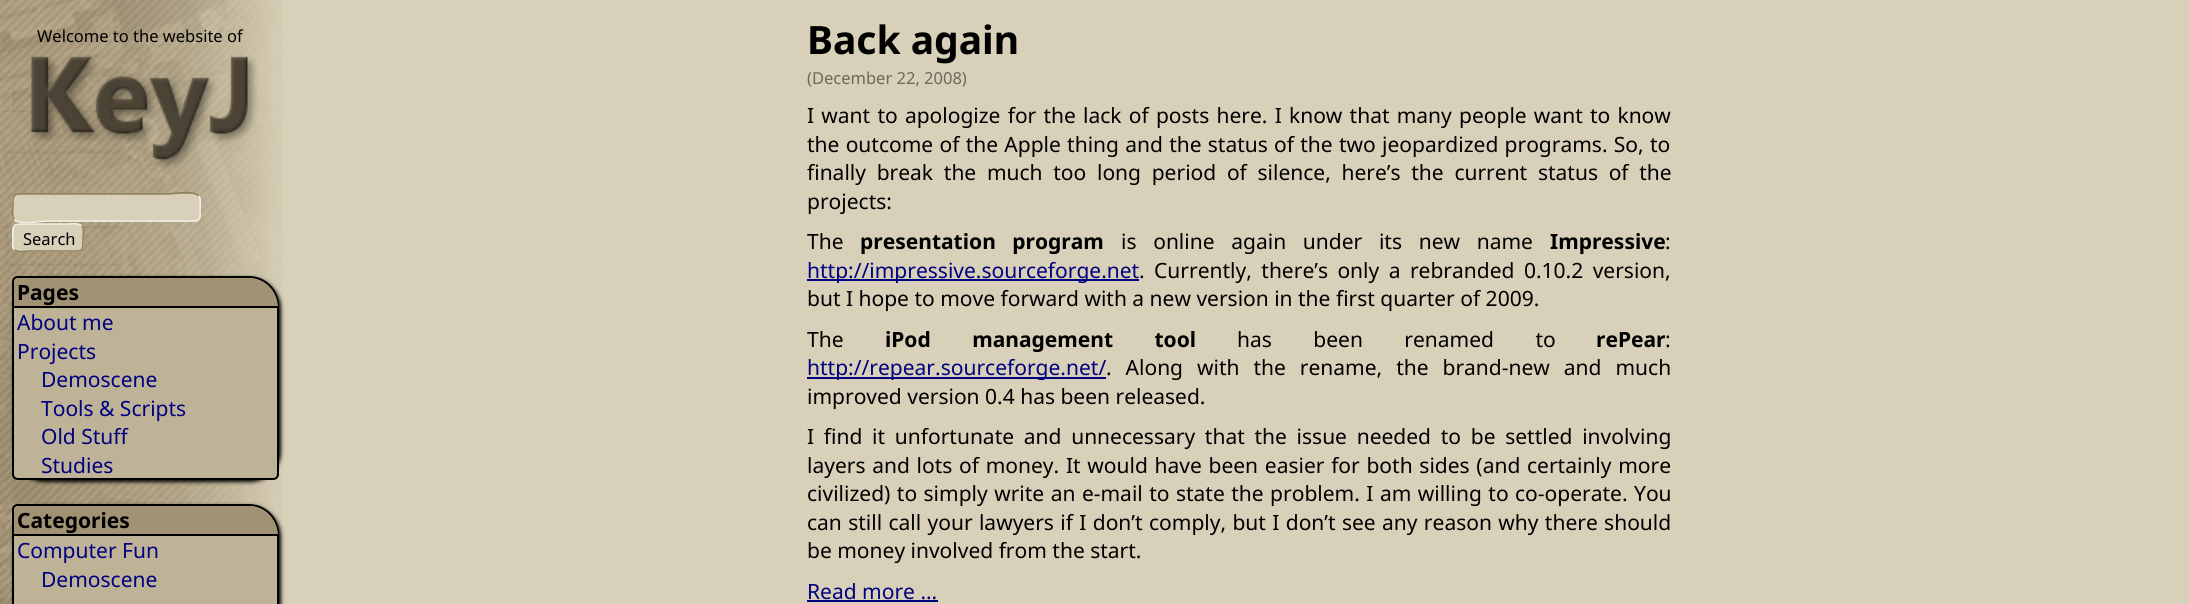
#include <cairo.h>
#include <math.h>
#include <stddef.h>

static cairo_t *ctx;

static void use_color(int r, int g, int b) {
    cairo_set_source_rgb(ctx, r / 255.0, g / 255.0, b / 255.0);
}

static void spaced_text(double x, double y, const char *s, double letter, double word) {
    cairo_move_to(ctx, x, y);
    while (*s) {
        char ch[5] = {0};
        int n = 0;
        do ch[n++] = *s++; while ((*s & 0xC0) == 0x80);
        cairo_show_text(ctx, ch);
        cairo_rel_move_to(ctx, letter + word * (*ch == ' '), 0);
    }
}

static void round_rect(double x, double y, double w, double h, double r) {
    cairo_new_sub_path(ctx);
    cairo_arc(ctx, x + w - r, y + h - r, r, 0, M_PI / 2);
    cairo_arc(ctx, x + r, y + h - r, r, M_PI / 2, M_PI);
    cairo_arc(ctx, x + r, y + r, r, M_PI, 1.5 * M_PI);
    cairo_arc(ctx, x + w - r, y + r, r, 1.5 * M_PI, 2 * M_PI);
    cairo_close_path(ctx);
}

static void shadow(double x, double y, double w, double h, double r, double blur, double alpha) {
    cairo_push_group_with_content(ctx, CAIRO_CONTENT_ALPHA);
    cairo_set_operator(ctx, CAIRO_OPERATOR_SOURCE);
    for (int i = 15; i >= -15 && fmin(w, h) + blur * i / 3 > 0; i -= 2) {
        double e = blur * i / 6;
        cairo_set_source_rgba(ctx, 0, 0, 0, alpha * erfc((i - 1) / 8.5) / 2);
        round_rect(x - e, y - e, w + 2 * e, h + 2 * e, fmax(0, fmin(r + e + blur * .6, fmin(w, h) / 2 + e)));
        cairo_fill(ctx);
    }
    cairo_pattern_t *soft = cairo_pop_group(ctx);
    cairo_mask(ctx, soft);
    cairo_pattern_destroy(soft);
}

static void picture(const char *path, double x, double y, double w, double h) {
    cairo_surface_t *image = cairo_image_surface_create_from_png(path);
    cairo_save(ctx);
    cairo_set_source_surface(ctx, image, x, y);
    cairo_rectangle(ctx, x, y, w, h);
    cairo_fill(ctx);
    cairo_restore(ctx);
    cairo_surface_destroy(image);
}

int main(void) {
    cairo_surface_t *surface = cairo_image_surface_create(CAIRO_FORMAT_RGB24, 2189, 604);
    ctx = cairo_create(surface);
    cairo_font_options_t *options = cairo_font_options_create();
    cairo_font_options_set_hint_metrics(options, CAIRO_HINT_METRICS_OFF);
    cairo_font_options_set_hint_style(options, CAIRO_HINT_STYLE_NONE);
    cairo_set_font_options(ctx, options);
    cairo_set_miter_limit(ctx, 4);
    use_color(216, 208, 184);
    cairo_paint(ctx);
    picture("img1.png", 0, 0, 283, 604);
    cairo_select_font_face(ctx, "Noto Sans", CAIRO_FONT_SLANT_NORMAL, CAIRO_FONT_WEIGHT_NORMAL);
    cairo_set_font_size(ctx, 16.5);
    use_color(0, 0, 0);
    cairo_move_to(ctx, 37, 42);
    cairo_show_text(ctx, "Welcome to the website of");
    picture("img2.png", 30, 55, 228, 114);
    cairo_select_font_face(ctx, "Noto Sans", CAIRO_FONT_SLANT_NORMAL, CAIRO_FONT_WEIGHT_BOLD);
    cairo_set_font_size(ctx, 39);
    cairo_move_to(ctx, 807, 54);
    cairo_show_text(ctx, "Back again");
    cairo_select_font_face(ctx, "Noto Sans", CAIRO_FONT_SLANT_NORMAL, CAIRO_FONT_WEIGHT_NORMAL);
    cairo_set_font_size(ctx, 16.5);
    use_color(108, 104, 92);
    cairo_move_to(ctx, 807, 84);
    cairo_show_text(ctx, "(December 22, 2008)");
    cairo_set_font_size(ctx, 21);
    use_color(0, 0, 0);
    spaced_text(807, 123, "I want to apologize for the lack of posts here. I know that many people want to know", 0, 1.75);
    spaced_text(807, 152, "the outcome of the Apple thing and the status of the two jeopardized programs. So, to", 0, 0.8);
    spaced_text(807, 180, "finally break the much too long period of silence, here’s the current status of the", 0, 5.25);
    cairo_move_to(ctx, 807, 209);
    cairo_show_text(ctx, "projects:");
    cairo_move_to(ctx, 807, 249);
    cairo_show_text(ctx, "The");
    cairo_select_font_face(ctx, "Noto Sans", CAIRO_FONT_SLANT_NORMAL, CAIRO_FONT_WEIGHT_BOLD);
    spaced_text(860, 249, "presentation program", 0, 11);
    cairo_select_font_face(ctx, "Noto Sans", CAIRO_FONT_SLANT_NORMAL, CAIRO_FONT_WEIGHT_NORMAL);
    spaced_text(1121, 249, "is online again under its new name", 0, 11.25);
    cairo_select_font_face(ctx, "Noto Sans", CAIRO_FONT_SLANT_NORMAL, CAIRO_FONT_WEIGHT_BOLD);
    cairo_move_to(ctx, 1550, 249);
    cairo_show_text(ctx, "Impressive");
    cairo_select_font_face(ctx, "Noto Sans", CAIRO_FONT_SLANT_NORMAL, CAIRO_FONT_WEIGHT_NORMAL);
    cairo_move_to(ctx, 1665, 249);
    cairo_show_text(ctx, ":");
    use_color(0, 0, 128);
    cairo_rectangle(ctx, 807, 279, 332, 2);
    cairo_fill(ctx);
    cairo_move_to(ctx, 807, 278);
    cairo_show_text(ctx, "http://impressive.sourceforge.net");
    use_color(0, 0, 0);
    spaced_text(1139, 278, ". Currently, there’s only a rebranded 0.10.2 version,", 0, 4);
    cairo_move_to(ctx, 807, 306);
    cairo_show_text(ctx, "but I hope to move forward with a new version in the first quarter of 2009.");
    cairo_move_to(ctx, 807, 347);
    cairo_show_text(ctx, "The");
    cairo_select_font_face(ctx, "Noto Sans", CAIRO_FONT_SLANT_NORMAL, CAIRO_FONT_WEIGHT_BOLD);
    spaced_text(885, 347, "iPod management tool", 0, 36);
    cairo_select_font_face(ctx, "Noto Sans", CAIRO_FONT_SLANT_NORMAL, CAIRO_FONT_WEIGHT_NORMAL);
    spaced_text(1237, 347, "has been renamed to", 0, 36);
    cairo_select_font_face(ctx, "Noto Sans", CAIRO_FONT_SLANT_NORMAL, CAIRO_FONT_WEIGHT_BOLD);
    cairo_move_to(ctx, 1596, 347);
    cairo_show_text(ctx, "rePear");
    cairo_select_font_face(ctx, "Noto Sans", CAIRO_FONT_SLANT_NORMAL, CAIRO_FONT_WEIGHT_NORMAL);
    cairo_move_to(ctx, 1665, 347);
    cairo_show_text(ctx, ":");
    use_color(0, 0, 128);
    cairo_rectangle(ctx, 807, 377, 299, 2);
    cairo_fill(ctx);
    cairo_move_to(ctx, 807, 375);
    cairo_show_text(ctx, "http://repear.sourceforge.net/");
    use_color(0, 0, 0);
    spaced_text(1106, 375, ". Along with the rename, the brand-new and much", 0, 8.5);
    cairo_move_to(ctx, 807, 404);
    cairo_show_text(ctx, "improved version 0.4 has been released.");
    spaced_text(807, 444, "I find it unfortunate and unnecessary that the issue needed to be settled involving", 0, 4.25);
    spaced_text(807, 473, "layers and lots of money. It would have been easier for both sides (and certainly more", 0, 1.25);
    spaced_text(807, 501, "civilized) to simply write an e-mail to state the problem. I am willing to co-operate. You", 0, 1);
    spaced_text(807, 530, "can still call your lawyers if I don’t comply, but I don’t see any reason why there should", 0, 0.9);
    cairo_move_to(ctx, 807, 558);
    cairo_show_text(ctx, "be money involved from the start.");
    use_color(0, 0, 128);
    cairo_move_to(ctx, 807, 599);
    cairo_show_text(ctx, "Read more …");
    cairo_rectangle(ctx, 807, 600, 131, 2);
    cairo_fill(ctx);
    use_color(216, 208, 184);
    round_rect(12, 194, 189, 28, 6);
    cairo_fill(ctx);
    cairo_new_path(ctx);
    cairo_move_to(ctx, 198.5, 196);
    cairo_curve_to(ctx, 201.5, 198.5, 200, 207, 200, 210.5);
    cairo_curve_to(ctx, 200, 214.5, 201, 221, 195, 221);
    cairo_line_to(ctx, 47.5, 221);
    cairo_curve_to(ctx, 37, 221, 25.5, 225, 16, 221);
    cairo_line_to(ctx, 14.5, 219.5);
    use_color(242, 239, 230);
    cairo_set_line_width(ctx, 1.5);
    cairo_stroke(ctx);
    cairo_new_path(ctx);
    cairo_move_to(ctx, 14.5, 219.5);
    cairo_curve_to(ctx, 11.5, 217, 13, 208.5, 13, 205);
    cairo_curve_to(ctx, 13, 201, 12, 194.5, 18, 194);
    cairo_line_to(ctx, 165.5, 194);
    cairo_curve_to(ctx, 176, 194, 187.5, 190.5, 197, 194.5);
    cairo_line_to(ctx, 198.5, 196);
    use_color(140, 128, 91);
    cairo_stroke(ctx);
    use_color(216, 208, 184);
    round_rect(12, 224, 72, 28, 6);
    cairo_fill(ctx);
    cairo_new_path(ctx);
    cairo_move_to(ctx, 81.5, 226);
    cairo_curve_to(ctx, 84.5, 228.5, 83, 234.5, 83, 238);
    cairo_curve_to(ctx, 83, 252.5, 83.5, 251, 68, 251);
    cairo_line_to(ctx, 28, 251);
    cairo_curve_to(ctx, 25.5, 251, 17.5, 253, 14.5, 249.5);
    use_color(140, 128, 91);
    cairo_stroke(ctx);
    cairo_new_path(ctx);
    cairo_move_to(ctx, 14.5, 249.5);
    cairo_curve_to(ctx, 11.5, 247, 13, 241, 13, 238);
    cairo_curve_to(ctx, 13, 223, 12.5, 224, 28, 224);
    cairo_line_to(ctx, 68, 224);
    cairo_curve_to(ctx, 70.5, 224, 78.5, 222.5, 81.5, 226);
    use_color(242, 239, 230);
    cairo_stroke(ctx);
    cairo_set_font_size(ctx, 16.5);
    use_color(0, 0, 0);
    cairo_move_to(ctx, 23, 245);
    cairo_show_text(ctx, "Search");
    use_color(0, 0, 0);
    shadow(14, 278, 267, 204, 30, 2, 1);
    use_color(190, 178, 151);
    cairo_new_path(ctx);
    cairo_move_to(ctx, 18, 277);
    cairo_line_to(ctx, 249, 277);
    cairo_curve_to(ctx, 265, 277, 278, 290, 278, 306);
    cairo_line_to(ctx, 278, 474);
    cairo_curve_to(ctx, 278, 477, 276, 479, 273, 479);
    cairo_line_to(ctx, 18, 479);
    cairo_curve_to(ctx, 15, 479, 13, 477, 13, 474);
    cairo_line_to(ctx, 13, 282);
    cairo_curve_to(ctx, 13, 279, 15, 277, 18, 277);
    cairo_close_path(ctx);
    cairo_fill_preserve(ctx);
    use_color(0, 0, 0);
    cairo_set_line_width(ctx, 2);
    cairo_stroke(ctx);
    use_color(161, 146, 116);
    cairo_new_path(ctx);
    cairo_move_to(ctx, 20, 278);
    cairo_line_to(ctx, 248, 278);
    cairo_curve_to(ctx, 264.5, 278, 278, 291.5, 278, 308);
    cairo_line_to(ctx, 14, 308);
    cairo_line_to(ctx, 14, 284);
    cairo_curve_to(ctx, 14, 280.5, 16.5, 278, 20, 278);
    cairo_close_path(ctx);
    cairo_fill(ctx);
    use_color(0, 0, 0);
    cairo_rectangle(ctx, 14, 306, 264, 2);
    cairo_fill(ctx);
    cairo_select_font_face(ctx, "Noto Sans", CAIRO_FONT_SLANT_NORMAL, CAIRO_FONT_WEIGHT_BOLD);
    cairo_set_font_size(ctx, 21);
    cairo_move_to(ctx, 17, 300);
    cairo_show_text(ctx, "Pages");
    cairo_select_font_face(ctx, "Noto Sans", CAIRO_FONT_SLANT_NORMAL, CAIRO_FONT_WEIGHT_NORMAL);
    use_color(0, 0, 128);
    cairo_move_to(ctx, 17, 330);
    cairo_show_text(ctx, "About me");
    cairo_move_to(ctx, 17, 359);
    cairo_show_text(ctx, "Projects");
    cairo_move_to(ctx, 41, 387);
    cairo_show_text(ctx, "Demoscene");
    cairo_move_to(ctx, 41, 416);
    cairo_show_text(ctx, "Tools & Scripts");
    cairo_move_to(ctx, 41, 444);
    cairo_show_text(ctx, "Old Stuff");
    cairo_move_to(ctx, 41, 473);
    cairo_show_text(ctx, "Studies");
    use_color(0, 0, 0);
    shadow(14, 506, 267, 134, 30, 2, 1);
    use_color(190, 178, 151);
    cairo_new_path(ctx);
    cairo_move_to(ctx, 18, 505);
    cairo_line_to(ctx, 249, 505);
    cairo_curve_to(ctx, 265, 505, 278, 518, 278, 534);
    cairo_line_to(ctx, 278, 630);
    cairo_curve_to(ctx, 278, 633, 276, 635, 273, 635);
    cairo_line_to(ctx, 18, 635);
    cairo_curve_to(ctx, 15, 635, 13, 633, 13, 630);
    cairo_line_to(ctx, 13, 510);
    cairo_curve_to(ctx, 13, 507, 15, 505, 18, 505);
    cairo_close_path(ctx);
    cairo_fill_preserve(ctx);
    use_color(0, 0, 0);
    cairo_stroke(ctx);
    use_color(161, 146, 116);
    cairo_new_path(ctx);
    cairo_move_to(ctx, 20, 506);
    cairo_line_to(ctx, 248, 506);
    cairo_curve_to(ctx, 264.5, 506, 278, 519.5, 278, 536);
    cairo_line_to(ctx, 14, 536);
    cairo_line_to(ctx, 14, 512);
    cairo_curve_to(ctx, 14, 508.5, 16.5, 506, 20, 506);
    cairo_close_path(ctx);
    cairo_fill(ctx);
    use_color(0, 0, 0);
    cairo_rectangle(ctx, 14, 534, 264, 2);
    cairo_fill(ctx);
    cairo_select_font_face(ctx, "Noto Sans", CAIRO_FONT_SLANT_NORMAL, CAIRO_FONT_WEIGHT_BOLD);
    cairo_move_to(ctx, 17, 528);
    cairo_show_text(ctx, "Categories");
    cairo_select_font_face(ctx, "Noto Sans", CAIRO_FONT_SLANT_NORMAL, CAIRO_FONT_WEIGHT_NORMAL);
    use_color(0, 0, 128);
    cairo_move_to(ctx, 17, 558);
    cairo_show_text(ctx, "Computer Fun");
    cairo_move_to(ctx, 41, 587);
    cairo_show_text(ctx, "Demoscene");
    cairo_surface_write_to_png(surface, "result.png");
    cairo_font_options_destroy(options);
    cairo_destroy(ctx);
    cairo_surface_destroy(surface);
    return 0;
}
